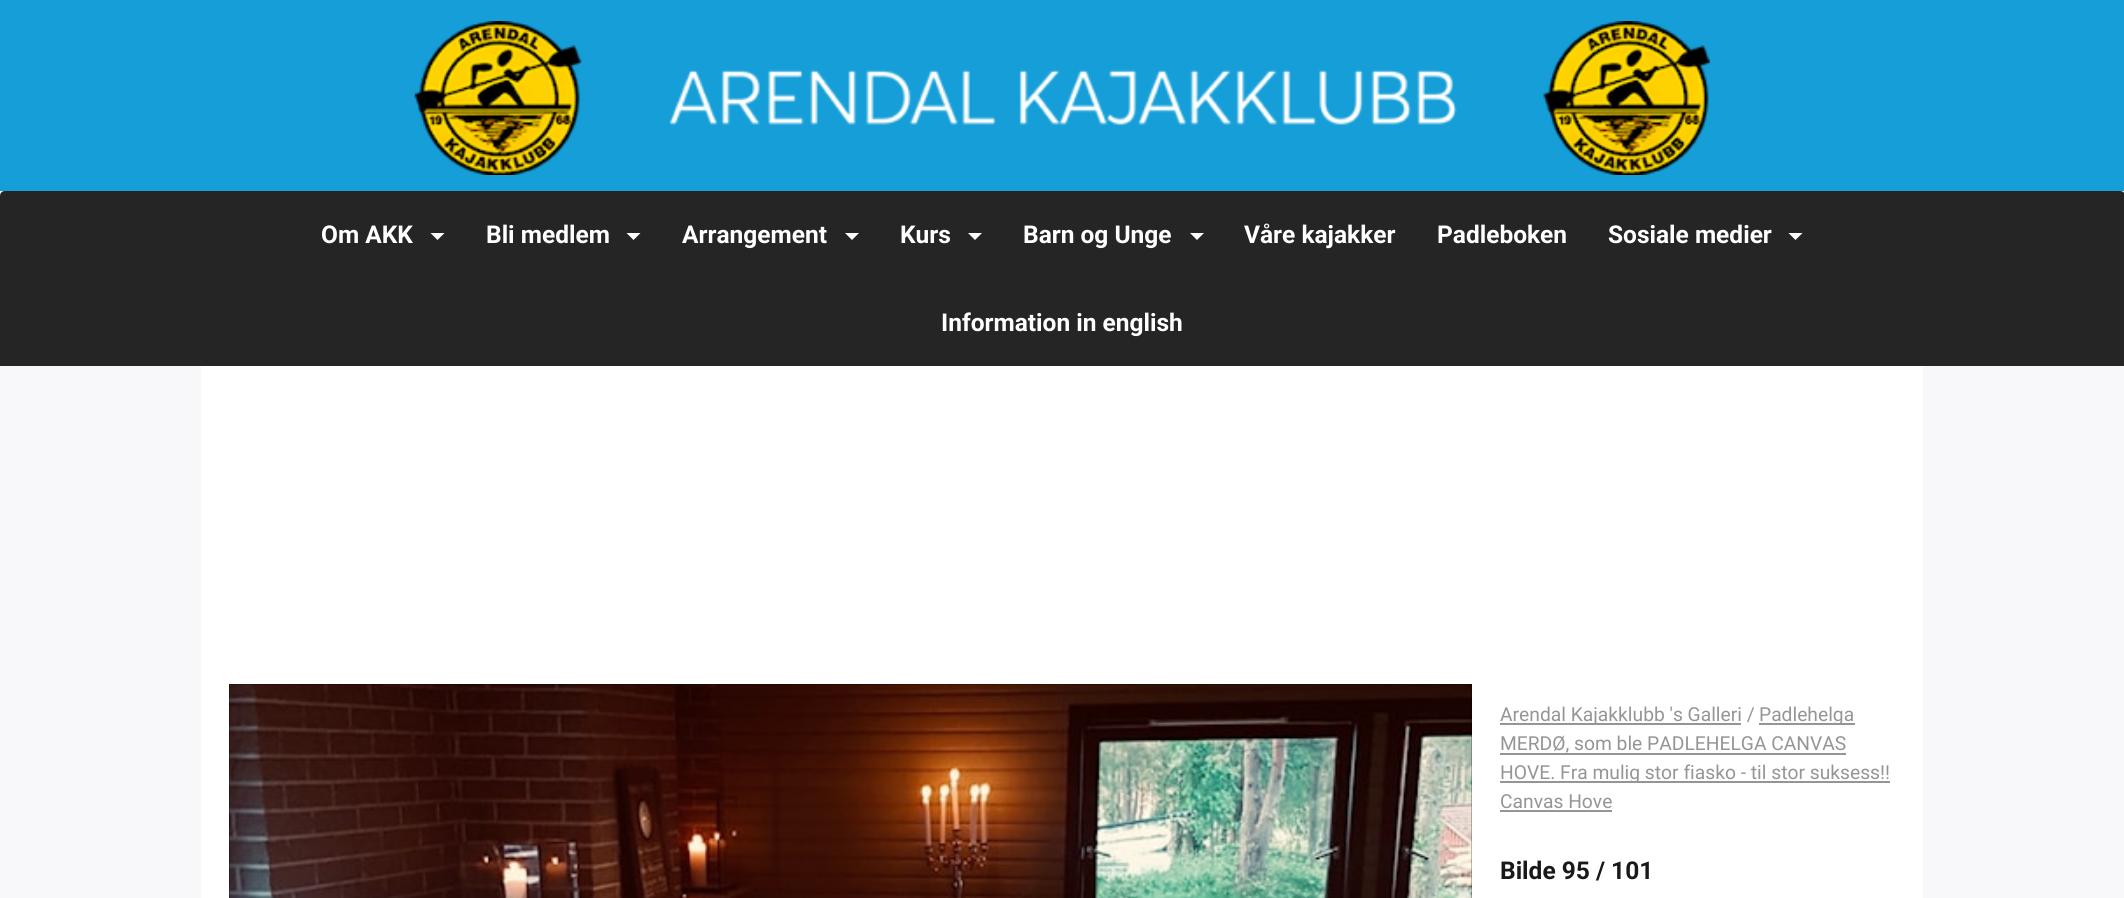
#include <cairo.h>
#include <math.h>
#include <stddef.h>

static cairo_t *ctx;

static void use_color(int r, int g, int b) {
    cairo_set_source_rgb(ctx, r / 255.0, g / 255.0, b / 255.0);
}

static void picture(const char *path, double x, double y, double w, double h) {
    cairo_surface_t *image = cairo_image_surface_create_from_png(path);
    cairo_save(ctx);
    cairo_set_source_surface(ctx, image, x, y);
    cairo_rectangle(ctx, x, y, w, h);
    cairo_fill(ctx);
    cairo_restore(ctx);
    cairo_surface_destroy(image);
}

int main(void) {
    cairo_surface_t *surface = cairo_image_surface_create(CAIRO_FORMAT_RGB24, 2124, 898);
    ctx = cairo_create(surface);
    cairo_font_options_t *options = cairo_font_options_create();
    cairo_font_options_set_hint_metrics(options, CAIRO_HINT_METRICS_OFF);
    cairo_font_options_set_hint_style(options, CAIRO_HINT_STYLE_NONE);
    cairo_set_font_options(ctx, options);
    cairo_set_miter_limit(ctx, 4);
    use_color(248, 248, 250);
    cairo_paint(ctx);
    use_color(21, 158, 215);
    cairo_rectangle(ctx, 0, 0, 2124, 191);
    cairo_fill(ctx);
    picture("img1.png", 414, 21, 1296, 154);
    use_color(37, 37, 37);
    cairo_new_path(ctx);
    cairo_move_to(ctx, 5, 191);
    cairo_line_to(ctx, 2120, 191);
    cairo_curve_to(ctx, 2123, 191, 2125, 193, 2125, 196);
    cairo_line_to(ctx, 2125, 366);
    cairo_line_to(ctx, 0, 366);
    cairo_line_to(ctx, 0, 196);
    cairo_curve_to(ctx, 0, 193, 2, 191, 5, 191);
    cairo_close_path(ctx);
    cairo_fill(ctx);
    cairo_select_font_face(ctx, "Roboto", CAIRO_FONT_SLANT_NORMAL, CAIRO_FONT_WEIGHT_BOLD);
    cairo_set_font_size(ctx, 24.5);
    use_color(255, 255, 255);
    cairo_move_to(ctx, 321, 243);
    cairo_show_text(ctx, "Om AKK");
    cairo_new_path(ctx);
    cairo_move_to(ctx, 430.5, 233);
    cairo_line_to(ctx, 444.5, 233);
    cairo_line_to(ctx, 437.5, 240);
    cairo_close_path(ctx);
    cairo_fill(ctx);
    cairo_move_to(ctx, 486, 243);
    cairo_show_text(ctx, "Bli medlem");
    cairo_new_path(ctx);
    cairo_move_to(ctx, 626.5, 233);
    cairo_line_to(ctx, 640.5, 233);
    cairo_line_to(ctx, 633.5, 240);
    cairo_close_path(ctx);
    cairo_fill(ctx);
    cairo_move_to(ctx, 682, 243);
    cairo_show_text(ctx, "Arrangement");
    cairo_new_path(ctx);
    cairo_move_to(ctx, 845, 233);
    cairo_line_to(ctx, 859, 233);
    cairo_line_to(ctx, 852, 240);
    cairo_close_path(ctx);
    cairo_fill(ctx);
    cairo_move_to(ctx, 900, 243);
    cairo_show_text(ctx, "Kurs");
    cairo_new_path(ctx);
    cairo_move_to(ctx, 968, 233);
    cairo_line_to(ctx, 982, 233);
    cairo_line_to(ctx, 975, 240);
    cairo_close_path(ctx);
    cairo_fill(ctx);
    cairo_move_to(ctx, 1023, 243);
    cairo_show_text(ctx, "Barn og Unge");
    cairo_new_path(ctx);
    cairo_move_to(ctx, 1190, 233);
    cairo_line_to(ctx, 1204, 233);
    cairo_line_to(ctx, 1197, 240);
    cairo_close_path(ctx);
    cairo_fill(ctx);
    cairo_move_to(ctx, 1244, 243);
    cairo_show_text(ctx, "Våre kajakker");
    cairo_move_to(ctx, 1437, 243);
    cairo_show_text(ctx, "Padleboken");
    cairo_move_to(ctx, 1608, 243);
    cairo_show_text(ctx, "Sosiale medier");
    cairo_new_path(ctx);
    cairo_move_to(ctx, 1788.5, 233);
    cairo_line_to(ctx, 1802.5, 233);
    cairo_line_to(ctx, 1795.5, 240);
    cairo_close_path(ctx);
    cairo_fill(ctx);
    cairo_move_to(ctx, 941, 331);
    cairo_show_text(ctx, "Information in english");
    cairo_rectangle(ctx, 201, 366, 1722, 532);
    cairo_fill(ctx);
    use_color(0, 0, 0);
    cairo_rectangle(ctx, 229, 684, 1243, 214);
    cairo_fill(ctx);
    picture("img2.png", 229, 684, 1243, 214);
    use_color(149, 149, 149);
    cairo_rectangle(ctx, 1500, 723, 241, 2);
    cairo_fill(ctx);
    cairo_select_font_face(ctx, "Roboto", CAIRO_FONT_SLANT_NORMAL, CAIRO_FONT_WEIGHT_NORMAL);
    cairo_set_font_size(ctx, 19.25);
    cairo_move_to(ctx, 1500, 721);
    cairo_show_text(ctx, "Arendal Kajakklubb 's Galleri /");
    cairo_rectangle(ctx, 1759, 723, 96, 2);
    cairo_fill(ctx);
    cairo_move_to(ctx, 1759, 721);
    cairo_show_text(ctx, "Padlehelga");
    cairo_move_to(ctx, 1500, 750);
    cairo_show_text(ctx, "MERDØ, som ble PADLEHELGA CANVAS");
    cairo_rectangle(ctx, 1500, 753, 346, 2);
    cairo_fill(ctx);
    cairo_rectangle(ctx, 1500, 781, 390, 2);
    cairo_fill(ctx);
    cairo_move_to(ctx, 1500, 779);
    cairo_show_text(ctx, "HOVE. Fra mulig stor fiasko - til stor suksess!!");
    cairo_move_to(ctx, 1500, 808);
    cairo_show_text(ctx, "Canvas Hove");
    cairo_rectangle(ctx, 1500, 810, 112, 2);
    cairo_fill(ctx);
    cairo_select_font_face(ctx, "Roboto", CAIRO_FONT_SLANT_NORMAL, CAIRO_FONT_WEIGHT_BOLD);
    cairo_set_font_size(ctx, 24.5);
    use_color(25, 25, 25);
    cairo_move_to(ctx, 1500, 879);
    cairo_show_text(ctx, "Bilde 95 / 101");
    cairo_surface_write_to_png(surface, "result.png");
    cairo_font_options_destroy(options);
    cairo_destroy(ctx);
    cairo_surface_destroy(surface);
    return 0;
}
